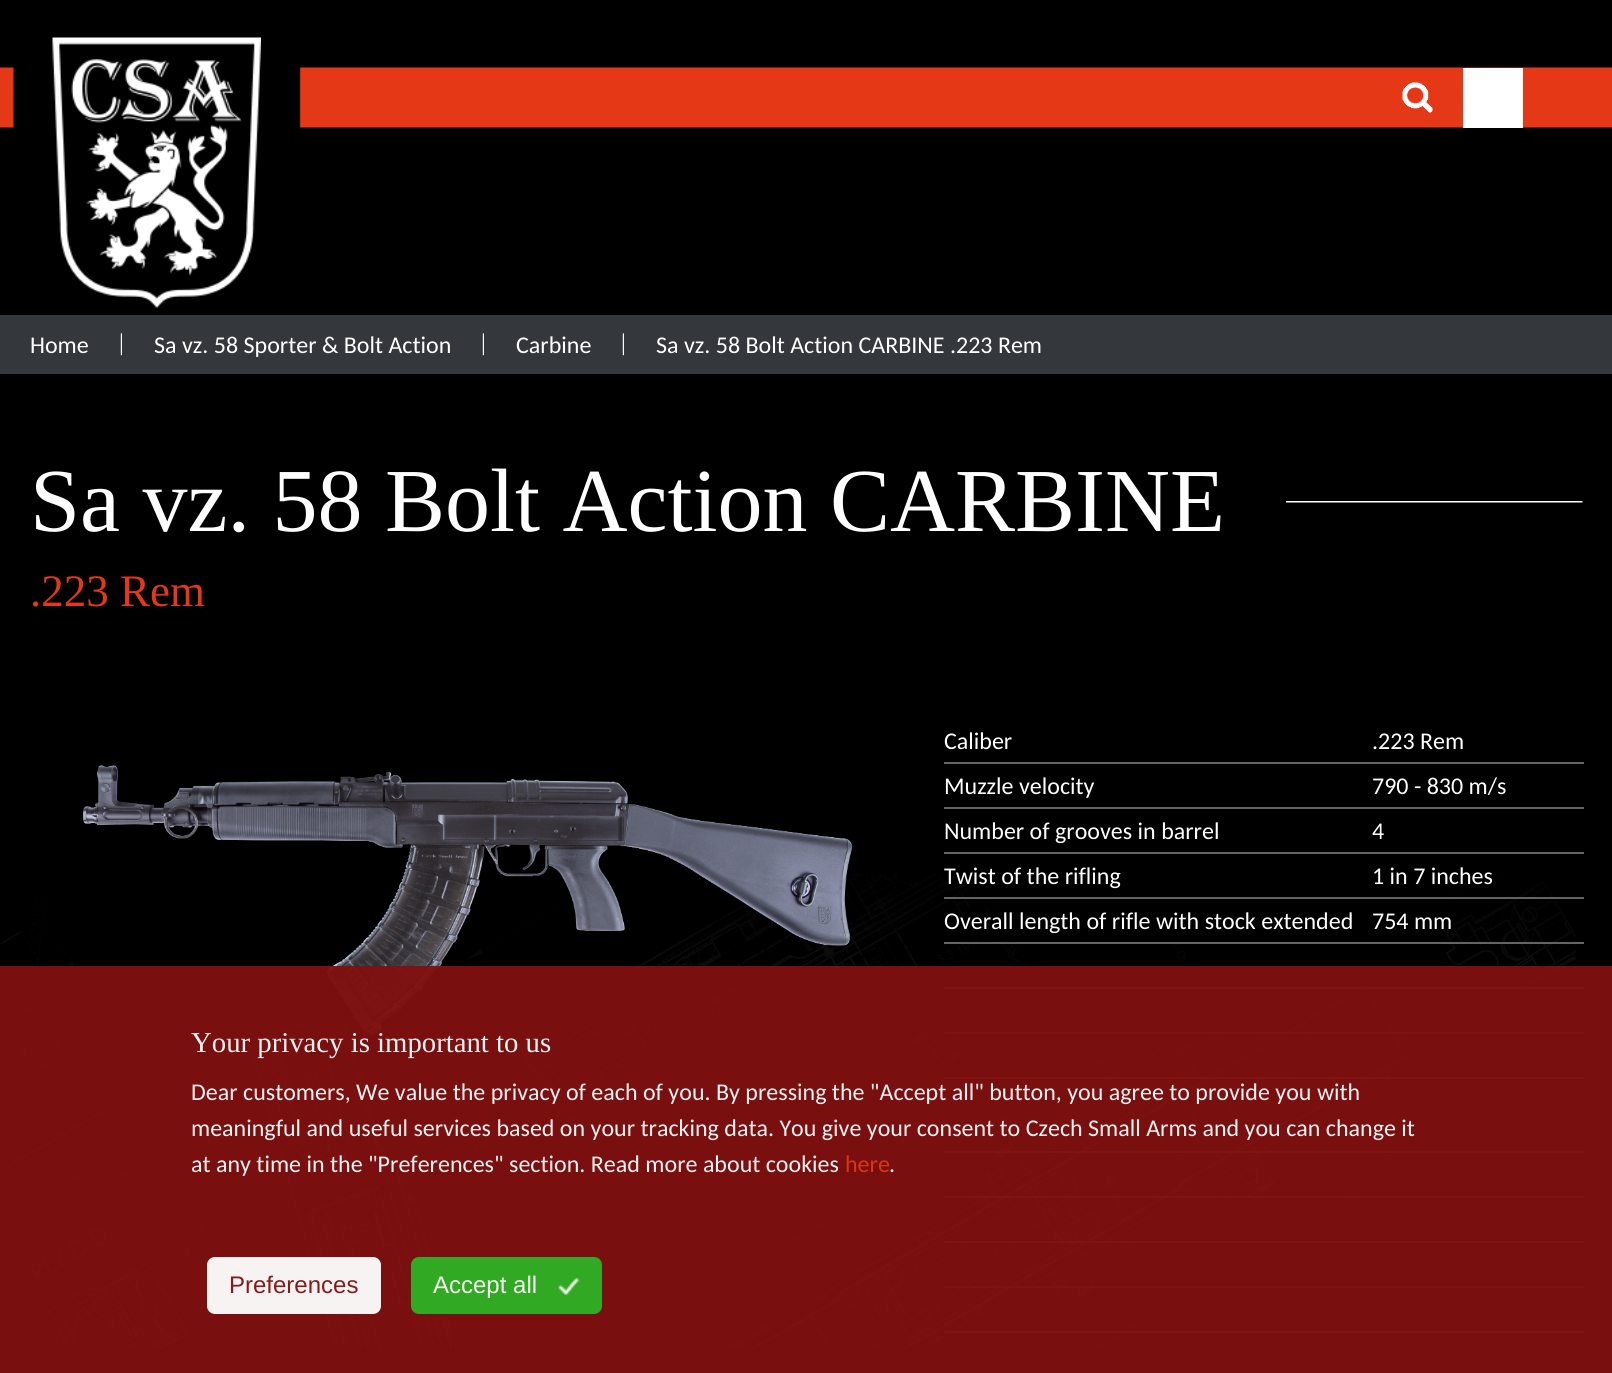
#include <cairo.h>
#include <math.h>
#include <stddef.h>

static cairo_t *ctx;

static void use_color(int r, int g, int b) {
    cairo_set_source_rgb(ctx, r / 255.0, g / 255.0, b / 255.0);
}

static void round_rect(double x, double y, double w, double h, double r) {
    cairo_new_sub_path(ctx);
    cairo_arc(ctx, x + w - r, y + h - r, r, 0, M_PI / 2);
    cairo_arc(ctx, x + r, y + h - r, r, M_PI / 2, M_PI);
    cairo_arc(ctx, x + r, y + r, r, M_PI, 1.5 * M_PI);
    cairo_arc(ctx, x + w - r, y + r, r, 1.5 * M_PI, 2 * M_PI);
    cairo_close_path(ctx);
}

static void picture(const char *path, double x, double y, double w, double h) {
    cairo_surface_t *image = cairo_image_surface_create_from_png(path);
    cairo_save(ctx);
    cairo_set_source_surface(ctx, image, x, y);
    cairo_rectangle(ctx, x, y, w, h);
    cairo_fill(ctx);
    cairo_restore(ctx);
    cairo_surface_destroy(image);
}

int main(void) {
    cairo_surface_t *surface = cairo_image_surface_create(CAIRO_FORMAT_RGB24, 1612, 1373);
    ctx = cairo_create(surface);
    cairo_font_options_t *options = cairo_font_options_create();
    cairo_font_options_set_hint_metrics(options, CAIRO_HINT_METRICS_OFF);
    cairo_font_options_set_hint_style(options, CAIRO_HINT_STYLE_NONE);
    cairo_set_font_options(ctx, options);
    cairo_set_miter_limit(ctx, 4);
    use_color(0, 0, 0);
    cairo_paint(ctx);
    picture("img1.png", 0, 67, 1612, 61);
    picture("img2.png", 52, 37, 209, 271);
    picture("img3.png", 1402, 82, 31, 31);
    use_color(255, 255, 255);
    cairo_rectangle(ctx, 1463, 68, 60, 60);
    cairo_fill(ctx);
    use_color(52, 56, 60);
    cairo_rectangle(ctx, 0, 315, 1612, 59);
    cairo_fill(ctx);
    cairo_select_font_face(ctx, "Carlito", CAIRO_FONT_SLANT_NORMAL, CAIRO_FONT_WEIGHT_NORMAL);
    cairo_set_font_size(ctx, 24);
    use_color(255, 255, 255);
    cairo_move_to(ctx, 30, 353);
    cairo_show_text(ctx, "Home");
    cairo_select_font_face(ctx, "Liberation Serif", CAIRO_FONT_SLANT_NORMAL, CAIRO_FONT_WEIGHT_NORMAL);
    cairo_move_to(ctx, 119, 350);
    cairo_show_text(ctx, "|");
    cairo_select_font_face(ctx, "Carlito", CAIRO_FONT_SLANT_NORMAL, CAIRO_FONT_WEIGHT_NORMAL);
    cairo_move_to(ctx, 154, 353);
    cairo_show_text(ctx, "Sa vz. 58 Sporter & Bolt Action");
    cairo_select_font_face(ctx, "Liberation Serif", CAIRO_FONT_SLANT_NORMAL, CAIRO_FONT_WEIGHT_NORMAL);
    cairo_move_to(ctx, 481, 350);
    cairo_show_text(ctx, "|");
    cairo_select_font_face(ctx, "Carlito", CAIRO_FONT_SLANT_NORMAL, CAIRO_FONT_WEIGHT_NORMAL);
    cairo_move_to(ctx, 516, 353);
    cairo_show_text(ctx, "Carbine");
    cairo_select_font_face(ctx, "Liberation Serif", CAIRO_FONT_SLANT_NORMAL, CAIRO_FONT_WEIGHT_NORMAL);
    cairo_move_to(ctx, 621, 350);
    cairo_show_text(ctx, "|");
    cairo_select_font_face(ctx, "Carlito", CAIRO_FONT_SLANT_NORMAL, CAIRO_FONT_WEIGHT_NORMAL);
    cairo_move_to(ctx, 656, 353);
    cairo_show_text(ctx, "Sa vz. 58 Bolt Action CARBINE .223 Rem");
    picture("img4.png", 0, 873, 1576, 476);
    picture("img5.png", 1286, 501, 297, 2);
    cairo_select_font_face(ctx, "Liberation Serif", CAIRO_FONT_SLANT_NORMAL, CAIRO_FONT_WEIGHT_NORMAL);
    cairo_set_font_size(ctx, 90);
    cairo_move_to(ctx, 30, 531);
    cairo_show_text(ctx, "Sa vz. 58 Bolt Action CARBINE");
    cairo_set_font_size(ctx, 45);
    use_color(229, 56, 23);
    cairo_move_to(ctx, 30, 606);
    cairo_show_text(ctx, ".223 Rem");
    picture("img6.png", 83, 765, 770, 271);
    cairo_select_font_face(ctx, "Carlito", CAIRO_FONT_SLANT_NORMAL, CAIRO_FONT_WEIGHT_NORMAL);
    cairo_set_font_size(ctx, 24);
    use_color(255, 255, 255);
    cairo_move_to(ctx, 944, 749);
    cairo_show_text(ctx, "Caliber");
    use_color(99, 100, 102);
    cairo_rectangle(ctx, 944, 762, 640, 2);
    cairo_fill(ctx);
    use_color(255, 255, 255);
    cairo_move_to(ctx, 1372, 749);
    cairo_show_text(ctx, ".223 Rem");
    cairo_move_to(ctx, 944, 794);
    cairo_show_text(ctx, "Muzzle velocity");
    use_color(99, 100, 102);
    cairo_rectangle(ctx, 944, 807, 640, 2);
    cairo_fill(ctx);
    use_color(255, 255, 255);
    cairo_move_to(ctx, 1372, 794);
    cairo_show_text(ctx, "790 - 830 m/s");
    cairo_move_to(ctx, 944, 839);
    cairo_show_text(ctx, "Number of grooves in barrel");
    use_color(99, 100, 102);
    cairo_rectangle(ctx, 944, 852, 640, 2);
    cairo_fill(ctx);
    use_color(255, 255, 255);
    cairo_move_to(ctx, 1372, 839);
    cairo_show_text(ctx, "4");
    cairo_move_to(ctx, 944, 884);
    cairo_show_text(ctx, "Twist of the rifling");
    use_color(99, 100, 102);
    cairo_rectangle(ctx, 944, 897, 640, 2);
    cairo_fill(ctx);
    use_color(255, 255, 255);
    cairo_move_to(ctx, 1372, 884);
    cairo_show_text(ctx, "1 in 7 inches");
    cairo_move_to(ctx, 944, 929);
    cairo_show_text(ctx, "Overall length of rifle with stock extended");
    use_color(99, 100, 102);
    cairo_rectangle(ctx, 944, 942, 640, 2);
    cairo_fill(ctx);
    use_color(255, 255, 255);
    cairo_move_to(ctx, 1372, 929);
    cairo_show_text(ctx, "754 mm");
    use_color(99, 100, 102);
    cairo_rectangle(ctx, 944, 987, 640, 2);
    cairo_fill(ctx);
    cairo_rectangle(ctx, 944, 1032, 640, 2);
    cairo_fill(ctx);
    cairo_rectangle(ctx, 944, 1077, 640, 2);
    cairo_fill(ctx);
    cairo_rectangle(ctx, 944, 1151, 640, 2);
    cairo_fill(ctx);
    cairo_rectangle(ctx, 944, 1196, 640, 2);
    cairo_fill(ctx);
    cairo_rectangle(ctx, 944, 1241, 640, 2);
    cairo_fill(ctx);
    cairo_rectangle(ctx, 944, 1286, 640, 2);
    cairo_fill(ctx);
    cairo_rectangle(ctx, 944, 1331, 640, 2);
    cairo_fill(ctx);
    cairo_set_source_rgba(ctx, 0.502, 0.063, 0.063, 0.95);
    cairo_rectangle(ctx, 0, 966, 1612, 407);
    cairo_fill(ctx);
    cairo_select_font_face(ctx, "Liberation Serif", CAIRO_FONT_SLANT_NORMAL, CAIRO_FONT_WEIGHT_NORMAL);
    cairo_set_font_size(ctx, 28.75);
    use_color(248, 243, 243);
    cairo_move_to(ctx, 191, 1052);
    cairo_show_text(ctx, "Your privacy is important to us");
    cairo_select_font_face(ctx, "Carlito", CAIRO_FONT_SLANT_NORMAL, CAIRO_FONT_WEIGHT_NORMAL);
    cairo_set_font_size(ctx, 24);
    cairo_move_to(ctx, 191, 1100);
    cairo_show_text(ctx, "Dear customers, We value the privacy of each of you. By pressing the \"Accept all\" button, you agree to provide you with");
    cairo_move_to(ctx, 191, 1136);
    cairo_show_text(ctx, "meaningful and useful services based on your tracking data. You give your consent to Czech Small Arms and you can change it");
    cairo_move_to(ctx, 191, 1172);
    cairo_show_text(ctx, "at any time in the \"Preferences\" section. Read more about cookies");
    use_color(218, 53, 22);
    cairo_move_to(ctx, 845, 1172);
    cairo_show_text(ctx, "here");
    use_color(242, 242, 242);
    cairo_move_to(ctx, 889, 1172);
    cairo_show_text(ctx, ".");
    use_color(248, 243, 243);
    round_rect(207, 1257, 174, 57, 8);
    cairo_fill(ctx);
    cairo_select_font_face(ctx, "Liberation Sans", CAIRO_FONT_SLANT_NORMAL, CAIRO_FONT_WEIGHT_NORMAL);
    use_color(134, 27, 27);
    cairo_move_to(ctx, 229, 1293);
    cairo_show_text(ctx, "Preferences");
    use_color(49, 169, 34);
    round_rect(411, 1257, 191, 57, 8);
    cairo_fill(ctx);
    picture("img7.png", 558, 1278, 22, 17);
    use_color(245, 251, 244);
    cairo_move_to(ctx, 433, 1293);
    cairo_show_text(ctx, "Accept all");
    cairo_surface_write_to_png(surface, "result.png");
    cairo_font_options_destroy(options);
    cairo_destroy(ctx);
    cairo_surface_destroy(surface);
    return 0;
}
